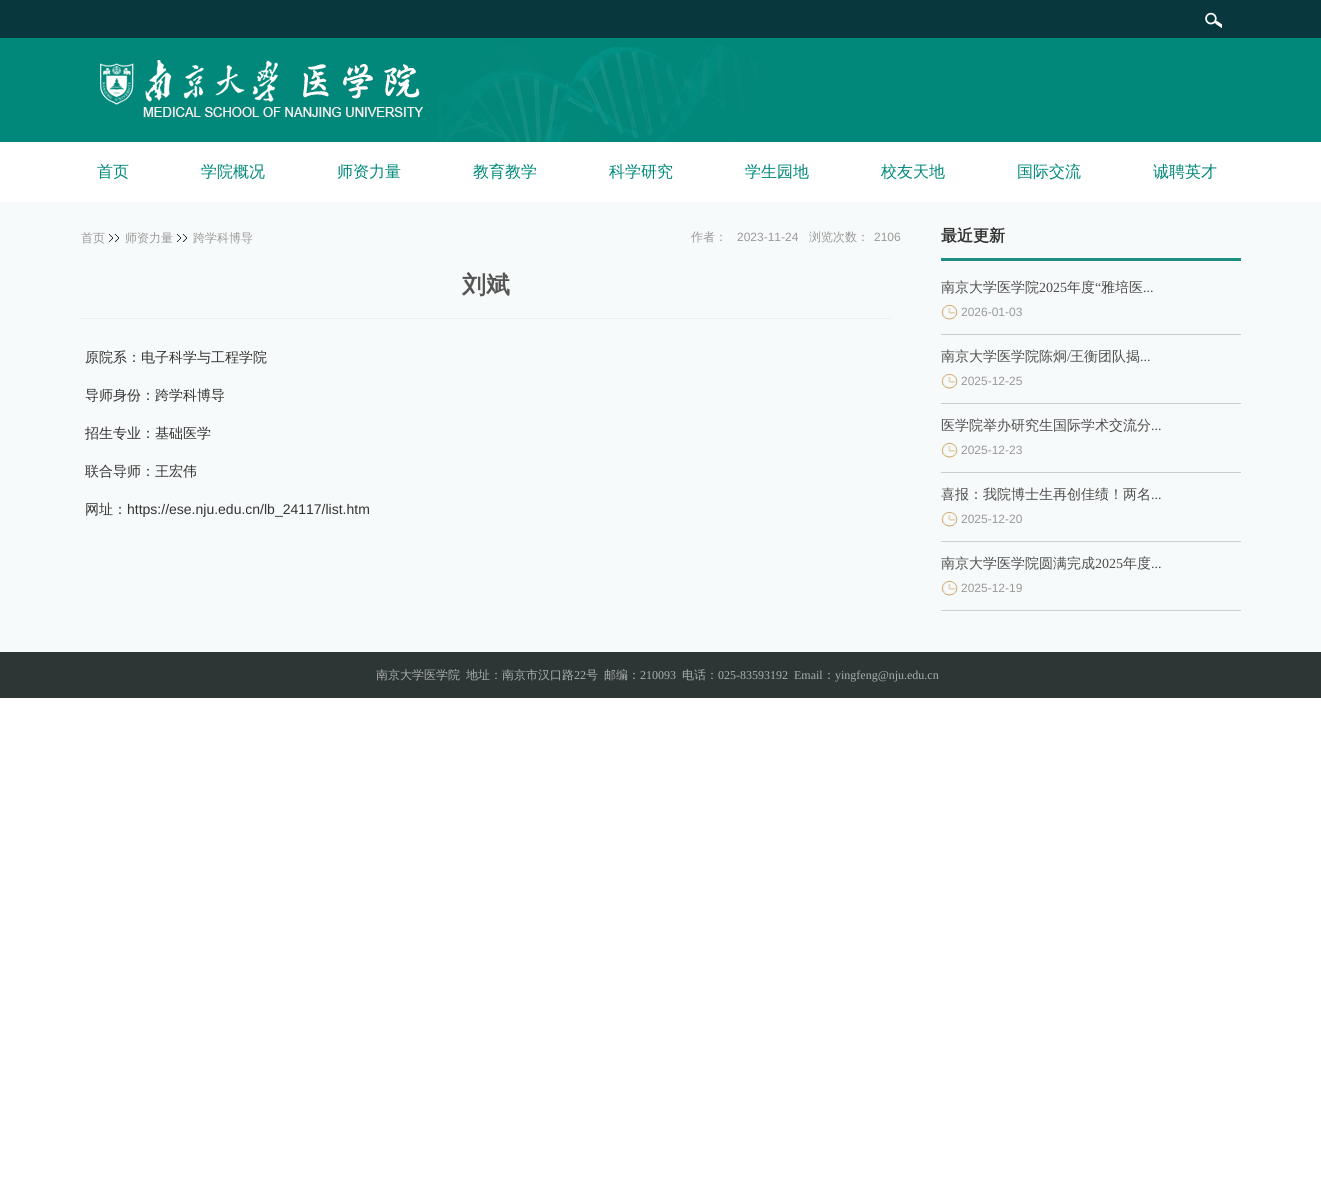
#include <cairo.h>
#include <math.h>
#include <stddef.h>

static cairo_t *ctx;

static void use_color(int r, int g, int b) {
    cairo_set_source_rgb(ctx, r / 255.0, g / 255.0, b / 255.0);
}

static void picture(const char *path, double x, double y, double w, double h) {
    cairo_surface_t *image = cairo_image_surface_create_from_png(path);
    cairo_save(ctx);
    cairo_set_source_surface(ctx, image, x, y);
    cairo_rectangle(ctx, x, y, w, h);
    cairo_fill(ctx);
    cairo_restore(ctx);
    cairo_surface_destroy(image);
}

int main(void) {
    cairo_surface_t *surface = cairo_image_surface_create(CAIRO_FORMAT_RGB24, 1321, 1198);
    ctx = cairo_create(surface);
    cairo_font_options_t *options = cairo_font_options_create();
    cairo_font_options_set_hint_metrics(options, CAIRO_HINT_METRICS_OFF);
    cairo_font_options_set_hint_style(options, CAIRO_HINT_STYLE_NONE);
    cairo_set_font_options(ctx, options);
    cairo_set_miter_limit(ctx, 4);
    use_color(255, 255, 255);
    cairo_paint(ctx);
    use_color(9, 55, 62);
    cairo_rectangle(ctx, 0, 0, 1321, 38);
    cairo_fill(ctx);
    picture("img1.png", 1205, 12, 17, 16);
    use_color(1, 136, 122);
    cairo_rectangle(ctx, 0, 38, 1321, 104);
    cairo_fill(ctx);
    picture("img2.png", 438, 44, 320, 98);
    picture("img3.png", 100, 60, 323, 57);
    cairo_select_font_face(ctx, "WenQuanYi Zen Hei Medium", CAIRO_FONT_SLANT_NORMAL, CAIRO_FONT_WEIGHT_NORMAL);
    cairo_set_font_size(ctx, 16);
    use_color(0, 136, 122);
    cairo_move_to(ctx, 97, 177);
    cairo_show_text(ctx, "首页");
    cairo_move_to(ctx, 201, 177);
    cairo_show_text(ctx, "学院概况");
    cairo_move_to(ctx, 337, 177);
    cairo_show_text(ctx, "师资力量");
    cairo_move_to(ctx, 473, 177);
    cairo_show_text(ctx, "教育教学");
    cairo_move_to(ctx, 609, 177);
    cairo_show_text(ctx, "科学研究");
    cairo_move_to(ctx, 745, 177);
    cairo_show_text(ctx, "学生园地");
    cairo_move_to(ctx, 881, 177);
    cairo_show_text(ctx, "校友天地");
    cairo_move_to(ctx, 1017, 177);
    cairo_show_text(ctx, "国际交流");
    cairo_move_to(ctx, 1153, 177);
    cairo_show_text(ctx, "诚聘英才");
    use_color(247, 250, 250);
    cairo_rectangle(ctx, 0, 202, 1321, 450);
    cairo_fill(ctx);
    cairo_set_font_size(ctx, 12);
    use_color(153, 153, 153);
    cairo_move_to(ctx, 691, 241);
    cairo_show_text(ctx, "作者：");
    cairo_select_font_face(ctx, "Liberation Sans", CAIRO_FONT_SLANT_NORMAL, CAIRO_FONT_WEIGHT_NORMAL);
    cairo_move_to(ctx, 737, 241);
    cairo_show_text(ctx, "2023-11-24");
    cairo_select_font_face(ctx, "WenQuanYi Zen Hei Medium", CAIRO_FONT_SLANT_NORMAL, CAIRO_FONT_WEIGHT_NORMAL);
    cairo_move_to(ctx, 809, 241);
    cairo_show_text(ctx, "浏览次数：");
    cairo_select_font_face(ctx, "Liberation Sans", CAIRO_FONT_SLANT_NORMAL, CAIRO_FONT_WEIGHT_NORMAL);
    cairo_move_to(ctx, 874, 241);
    cairo_show_text(ctx, "2106");
    use_color(238, 238, 238);
    cairo_rectangle(ctx, 81, 318, 810, 1);
    cairo_fill(ctx);
    cairo_select_font_face(ctx, "WenQuanYi Zen Hei", CAIRO_FONT_SLANT_NORMAL, CAIRO_FONT_WEIGHT_BOLD);
    cairo_set_font_size(ctx, 24);
    use_color(85, 85, 85);
    cairo_move_to(ctx, 462, 293);
    cairo_show_text(ctx, "刘斌");
    cairo_select_font_face(ctx, "WenQuanYi Zen Hei Medium", CAIRO_FONT_SLANT_NORMAL, CAIRO_FONT_WEIGHT_NORMAL);
    cairo_set_font_size(ctx, 14);
    use_color(51, 51, 51);
    cairo_move_to(ctx, 85, 362);
    cairo_show_text(ctx, "原院系：电子科学与工程学院");
    cairo_move_to(ctx, 85, 400);
    cairo_show_text(ctx, "导师身份：跨学科博导");
    cairo_move_to(ctx, 85, 438);
    cairo_show_text(ctx, "招生专业：基础医学");
    cairo_move_to(ctx, 85, 476);
    cairo_show_text(ctx, "联合导师：王宏伟");
    cairo_move_to(ctx, 85, 514);
    cairo_show_text(ctx, "网址：");
    cairo_select_font_face(ctx, "Liberation Sans", CAIRO_FONT_SLANT_NORMAL, CAIRO_FONT_WEIGHT_NORMAL);
    cairo_move_to(ctx, 127, 514);
    cairo_show_text(ctx, "https://ese.nju.edu.cn/lb_24117/list.htm");
    use_color(31, 143, 129);
    cairo_rectangle(ctx, 941, 258, 300, 3);
    cairo_fill(ctx);
    cairo_select_font_face(ctx, "WenQuanYi Zen Hei", CAIRO_FONT_SLANT_NORMAL, CAIRO_FONT_WEIGHT_BOLD);
    cairo_set_font_size(ctx, 16);
    use_color(51, 51, 51);
    cairo_move_to(ctx, 941, 241);
    cairo_show_text(ctx, "最近更新");
    use_color(204, 204, 204);
    cairo_rectangle(ctx, 941, 334, 300, 1);
    cairo_fill(ctx);
    cairo_select_font_face(ctx, "WenQuanYi Zen Hei Medium", CAIRO_FONT_SLANT_NORMAL, CAIRO_FONT_WEIGHT_NORMAL);
    cairo_set_font_size(ctx, 14);
    use_color(77, 77, 77);
    cairo_move_to(ctx, 941, 292);
    cairo_show_text(ctx, "南京大学医学院");
    cairo_select_font_face(ctx, "Liberation Serif", CAIRO_FONT_SLANT_NORMAL, CAIRO_FONT_WEIGHT_NORMAL);
    cairo_move_to(ctx, 1039, 292);
    cairo_show_text(ctx, "2025");
    cairo_select_font_face(ctx, "WenQuanYi Zen Hei Medium", CAIRO_FONT_SLANT_NORMAL, CAIRO_FONT_WEIGHT_NORMAL);
    cairo_move_to(ctx, 1067, 292);
    cairo_show_text(ctx, "年度");
    cairo_select_font_face(ctx, "Liberation Serif", CAIRO_FONT_SLANT_NORMAL, CAIRO_FONT_WEIGHT_NORMAL);
    cairo_move_to(ctx, 1095, 292);
    cairo_show_text(ctx, "“");
    cairo_select_font_face(ctx, "WenQuanYi Zen Hei Medium", CAIRO_FONT_SLANT_NORMAL, CAIRO_FONT_WEIGHT_NORMAL);
    cairo_move_to(ctx, 1101, 292);
    cairo_show_text(ctx, "雅培医");
    cairo_select_font_face(ctx, "Liberation Serif", CAIRO_FONT_SLANT_NORMAL, CAIRO_FONT_WEIGHT_NORMAL);
    cairo_move_to(ctx, 1143, 292);
    cairo_show_text(ctx, "...");
    picture("img4.png", 941, 305, 17, 15);
    cairo_select_font_face(ctx, "Liberation Sans", CAIRO_FONT_SLANT_NORMAL, CAIRO_FONT_WEIGHT_NORMAL);
    cairo_set_font_size(ctx, 12);
    use_color(153, 153, 153);
    cairo_move_to(ctx, 961, 316);
    cairo_show_text(ctx, "2026-01-03");
    use_color(204, 204, 204);
    cairo_rectangle(ctx, 941, 403, 300, 1);
    cairo_fill(ctx);
    cairo_select_font_face(ctx, "WenQuanYi Zen Hei Medium", CAIRO_FONT_SLANT_NORMAL, CAIRO_FONT_WEIGHT_NORMAL);
    cairo_set_font_size(ctx, 14);
    use_color(77, 77, 77);
    cairo_move_to(ctx, 941, 361);
    cairo_show_text(ctx, "南京大学医学院陈炯");
    cairo_select_font_face(ctx, "Liberation Serif", CAIRO_FONT_SLANT_NORMAL, CAIRO_FONT_WEIGHT_NORMAL);
    cairo_move_to(ctx, 1067, 361);
    cairo_show_text(ctx, "/");
    cairo_select_font_face(ctx, "WenQuanYi Zen Hei Medium", CAIRO_FONT_SLANT_NORMAL, CAIRO_FONT_WEIGHT_NORMAL);
    cairo_move_to(ctx, 1070, 361);
    cairo_show_text(ctx, "王衡团队揭");
    cairo_select_font_face(ctx, "Liberation Serif", CAIRO_FONT_SLANT_NORMAL, CAIRO_FONT_WEIGHT_NORMAL);
    cairo_move_to(ctx, 1140, 361);
    cairo_show_text(ctx, "...");
    picture("img4.png", 941, 374, 17, 15);
    cairo_select_font_face(ctx, "Liberation Sans", CAIRO_FONT_SLANT_NORMAL, CAIRO_FONT_WEIGHT_NORMAL);
    cairo_set_font_size(ctx, 12);
    use_color(153, 153, 153);
    cairo_move_to(ctx, 961, 385);
    cairo_show_text(ctx, "2025-12-25");
    use_color(204, 204, 204);
    cairo_rectangle(ctx, 941, 472, 300, 1);
    cairo_fill(ctx);
    cairo_select_font_face(ctx, "WenQuanYi Zen Hei Medium", CAIRO_FONT_SLANT_NORMAL, CAIRO_FONT_WEIGHT_NORMAL);
    cairo_set_font_size(ctx, 14);
    use_color(77, 77, 77);
    cairo_move_to(ctx, 941, 430);
    cairo_show_text(ctx, "医学院举办研究生国际学术交流分");
    cairo_select_font_face(ctx, "Liberation Serif", CAIRO_FONT_SLANT_NORMAL, CAIRO_FONT_WEIGHT_NORMAL);
    cairo_move_to(ctx, 1151, 430);
    cairo_show_text(ctx, "...");
    picture("img4.png", 941, 443, 17, 15);
    cairo_select_font_face(ctx, "Liberation Sans", CAIRO_FONT_SLANT_NORMAL, CAIRO_FONT_WEIGHT_NORMAL);
    cairo_set_font_size(ctx, 12);
    use_color(153, 153, 153);
    cairo_move_to(ctx, 961, 454);
    cairo_show_text(ctx, "2025-12-23");
    use_color(204, 204, 204);
    cairo_rectangle(ctx, 941, 541, 300, 1);
    cairo_fill(ctx);
    cairo_select_font_face(ctx, "WenQuanYi Zen Hei Medium", CAIRO_FONT_SLANT_NORMAL, CAIRO_FONT_WEIGHT_NORMAL);
    cairo_set_font_size(ctx, 14);
    use_color(77, 77, 77);
    cairo_move_to(ctx, 941, 499);
    cairo_show_text(ctx, "喜报：我院博士生再创佳绩！两名");
    cairo_select_font_face(ctx, "Liberation Serif", CAIRO_FONT_SLANT_NORMAL, CAIRO_FONT_WEIGHT_NORMAL);
    cairo_move_to(ctx, 1151, 499);
    cairo_show_text(ctx, "...");
    picture("img4.png", 941, 512, 17, 15);
    cairo_select_font_face(ctx, "Liberation Sans", CAIRO_FONT_SLANT_NORMAL, CAIRO_FONT_WEIGHT_NORMAL);
    cairo_set_font_size(ctx, 12);
    use_color(153, 153, 153);
    cairo_move_to(ctx, 961, 523);
    cairo_show_text(ctx, "2025-12-20");
    use_color(204, 204, 204);
    cairo_rectangle(ctx, 941, 610, 300, 1);
    cairo_fill(ctx);
    cairo_select_font_face(ctx, "WenQuanYi Zen Hei Medium", CAIRO_FONT_SLANT_NORMAL, CAIRO_FONT_WEIGHT_NORMAL);
    cairo_set_font_size(ctx, 14);
    use_color(77, 77, 77);
    cairo_move_to(ctx, 941, 568);
    cairo_show_text(ctx, "南京大学医学院圆满完成");
    cairo_select_font_face(ctx, "Liberation Serif", CAIRO_FONT_SLANT_NORMAL, CAIRO_FONT_WEIGHT_NORMAL);
    cairo_move_to(ctx, 1095, 568);
    cairo_show_text(ctx, "2025");
    cairo_select_font_face(ctx, "WenQuanYi Zen Hei Medium", CAIRO_FONT_SLANT_NORMAL, CAIRO_FONT_WEIGHT_NORMAL);
    cairo_move_to(ctx, 1123, 568);
    cairo_show_text(ctx, "年度");
    cairo_select_font_face(ctx, "Liberation Serif", CAIRO_FONT_SLANT_NORMAL, CAIRO_FONT_WEIGHT_NORMAL);
    cairo_move_to(ctx, 1151, 568);
    cairo_show_text(ctx, "...");
    picture("img4.png", 941, 581, 17, 15);
    cairo_select_font_face(ctx, "Liberation Sans", CAIRO_FONT_SLANT_NORMAL, CAIRO_FONT_WEIGHT_NORMAL);
    cairo_set_font_size(ctx, 12);
    use_color(153, 153, 153);
    cairo_move_to(ctx, 961, 592);
    cairo_show_text(ctx, "2025-12-19");
    cairo_select_font_face(ctx, "WenQuanYi Zen Hei Medium", CAIRO_FONT_SLANT_NORMAL, CAIRO_FONT_WEIGHT_NORMAL);
    cairo_move_to(ctx, 81, 242);
    cairo_show_text(ctx, "首页");
    picture("img5.png", 108, 233, 12, 10);
    cairo_move_to(ctx, 125, 242);
    cairo_show_text(ctx, "师资力量");
    picture("img5.png", 176, 233, 12, 10);
    cairo_move_to(ctx, 193, 242);
    cairo_show_text(ctx, "跨学科博导");
    use_color(43, 54, 53);
    cairo_rectangle(ctx, 0, 652, 1321, 46);
    cairo_fill(ctx);
    use_color(171, 174, 174);
    cairo_move_to(ctx, 376, 679);
    cairo_show_text(ctx, "南京大学医学院");
    cairo_move_to(ctx, 466, 679);
    cairo_show_text(ctx, "地址：南京市汉口路");
    cairo_select_font_face(ctx, "Liberation Serif", CAIRO_FONT_SLANT_NORMAL, CAIRO_FONT_WEIGHT_NORMAL);
    cairo_move_to(ctx, 574, 679);
    cairo_show_text(ctx, "22");
    cairo_select_font_face(ctx, "WenQuanYi Zen Hei Medium", CAIRO_FONT_SLANT_NORMAL, CAIRO_FONT_WEIGHT_NORMAL);
    cairo_move_to(ctx, 586, 679);
    cairo_show_text(ctx, "号");
    cairo_move_to(ctx, 604, 679);
    cairo_show_text(ctx, "邮编：");
    cairo_select_font_face(ctx, "Liberation Serif", CAIRO_FONT_SLANT_NORMAL, CAIRO_FONT_WEIGHT_NORMAL);
    cairo_move_to(ctx, 640, 679);
    cairo_show_text(ctx, "210093");
    cairo_select_font_face(ctx, "WenQuanYi Zen Hei Medium", CAIRO_FONT_SLANT_NORMAL, CAIRO_FONT_WEIGHT_NORMAL);
    cairo_move_to(ctx, 682, 679);
    cairo_show_text(ctx, "电话：");
    cairo_select_font_face(ctx, "Liberation Serif", CAIRO_FONT_SLANT_NORMAL, CAIRO_FONT_WEIGHT_NORMAL);
    cairo_move_to(ctx, 718, 679);
    cairo_show_text(ctx, "025-83593192");
    cairo_move_to(ctx, 794, 679);
    cairo_show_text(ctx, "Email");
    cairo_select_font_face(ctx, "WenQuanYi Zen Hei Medium", CAIRO_FONT_SLANT_NORMAL, CAIRO_FONT_WEIGHT_NORMAL);
    cairo_move_to(ctx, 823, 679);
    cairo_show_text(ctx, "：");
    cairo_select_font_face(ctx, "Liberation Serif", CAIRO_FONT_SLANT_NORMAL, CAIRO_FONT_WEIGHT_NORMAL);
    cairo_move_to(ctx, 835, 679);
    cairo_show_text(ctx, "yingfeng@nju.edu.cn");
    cairo_surface_write_to_png(surface, "result.png");
    cairo_font_options_destroy(options);
    cairo_destroy(ctx);
    cairo_surface_destroy(surface);
    return 0;
}
